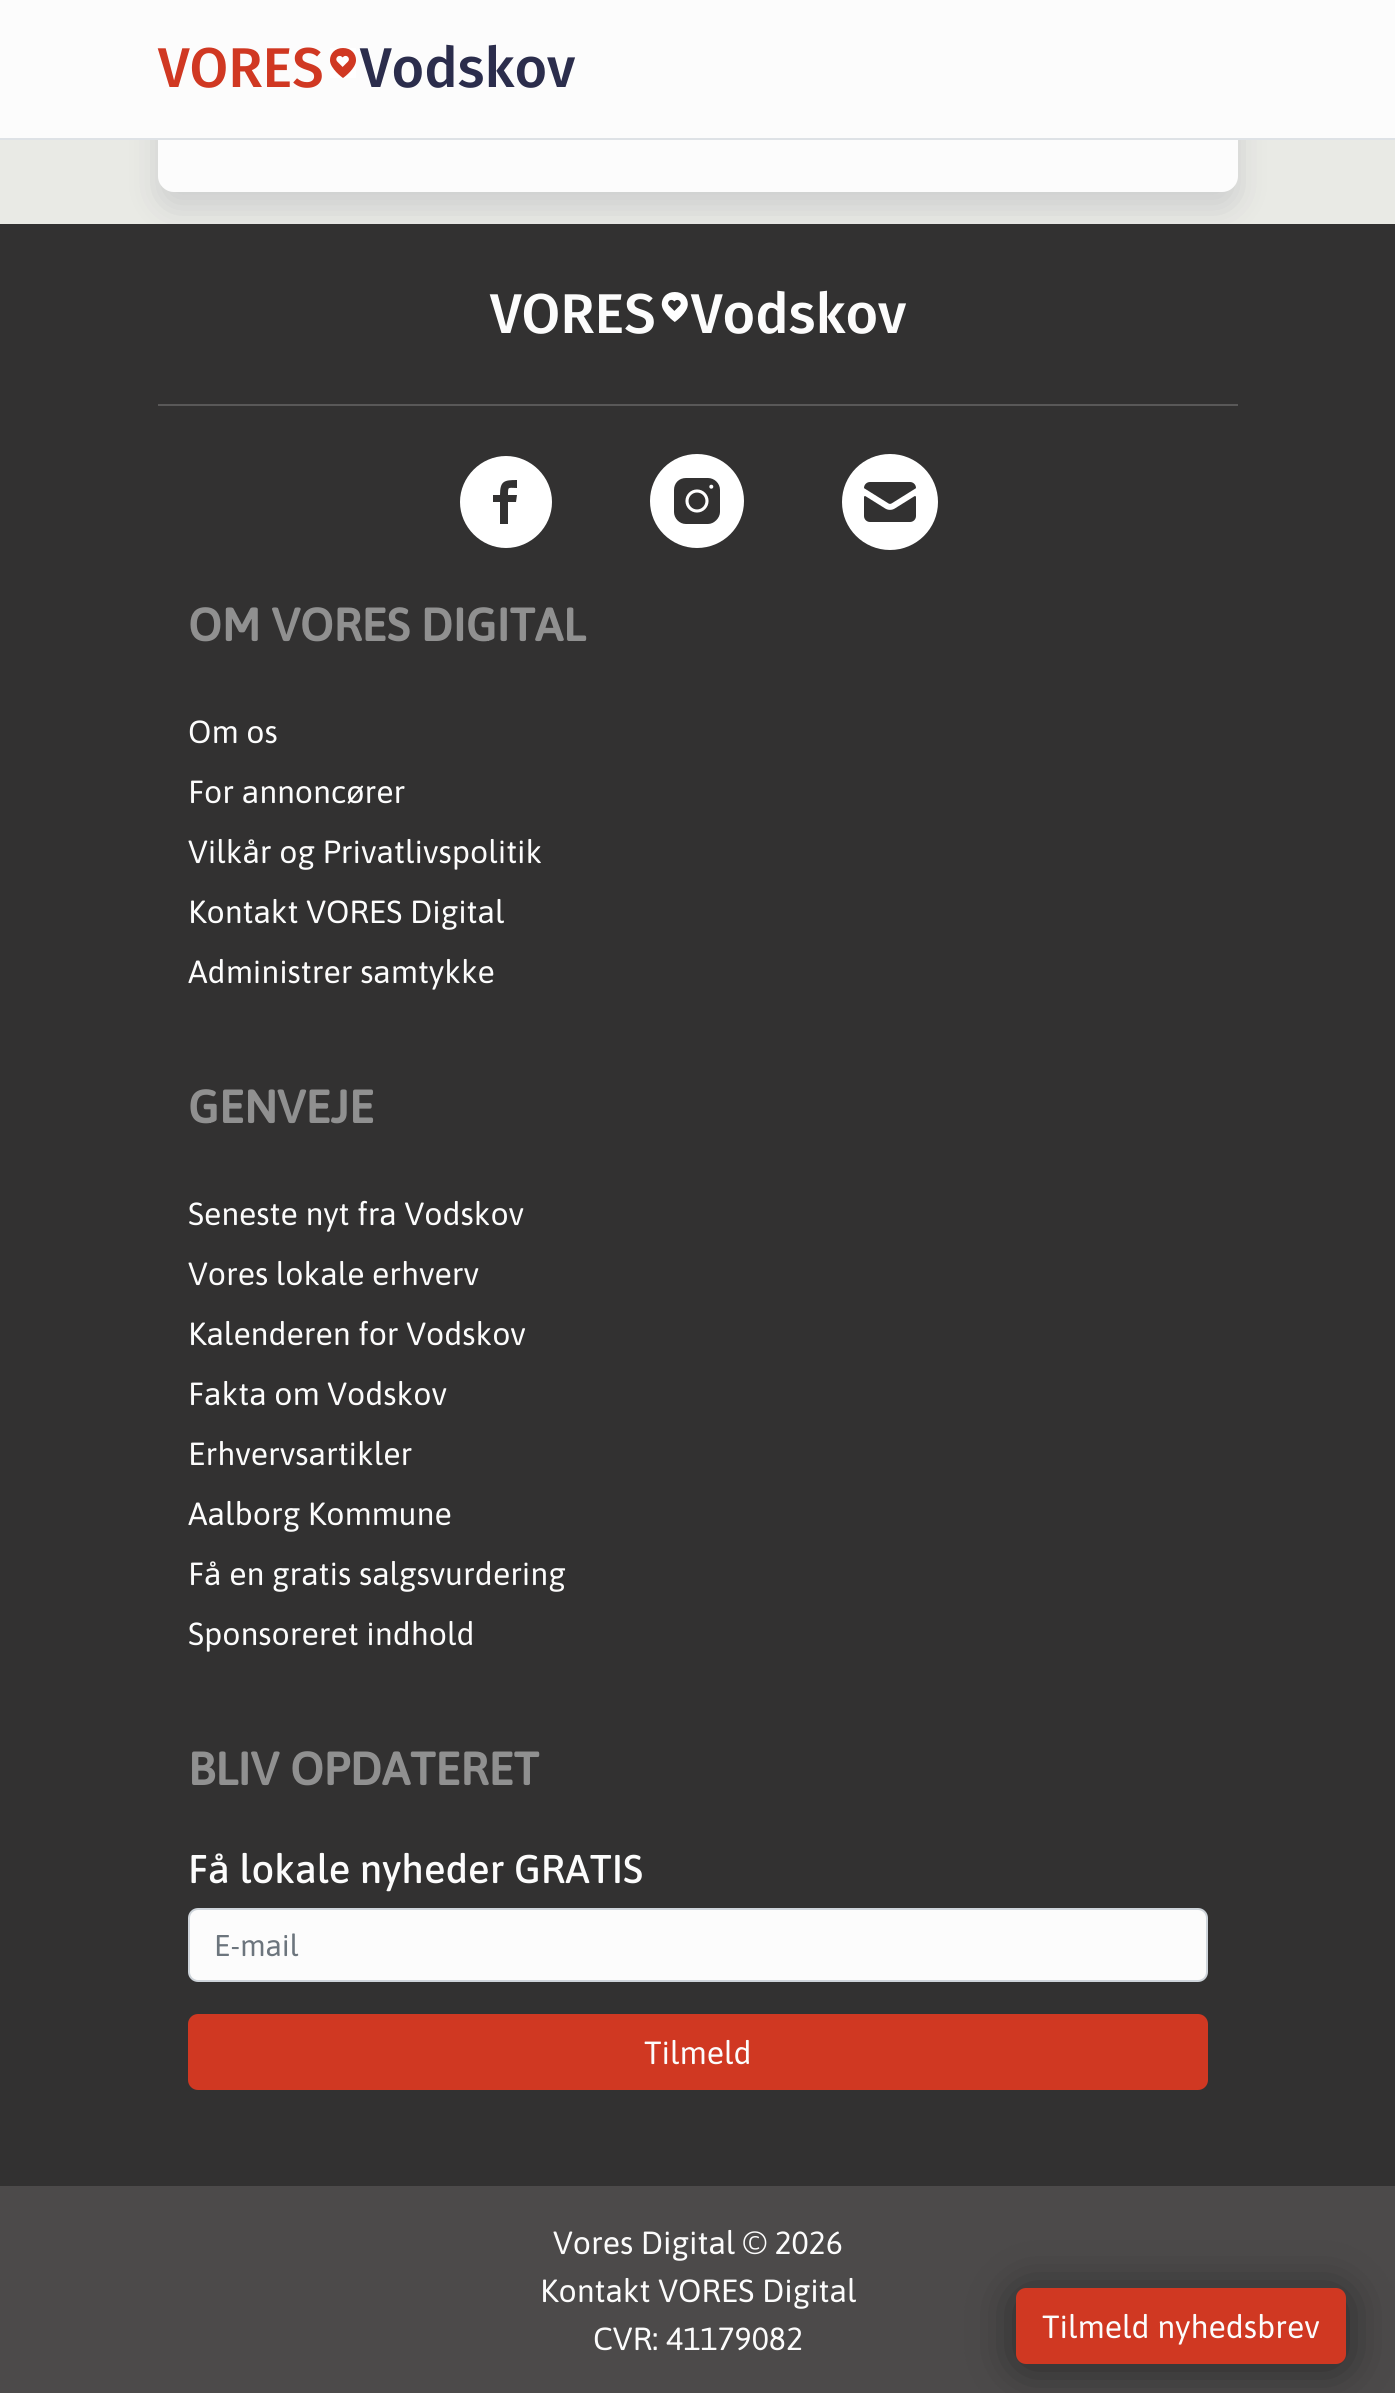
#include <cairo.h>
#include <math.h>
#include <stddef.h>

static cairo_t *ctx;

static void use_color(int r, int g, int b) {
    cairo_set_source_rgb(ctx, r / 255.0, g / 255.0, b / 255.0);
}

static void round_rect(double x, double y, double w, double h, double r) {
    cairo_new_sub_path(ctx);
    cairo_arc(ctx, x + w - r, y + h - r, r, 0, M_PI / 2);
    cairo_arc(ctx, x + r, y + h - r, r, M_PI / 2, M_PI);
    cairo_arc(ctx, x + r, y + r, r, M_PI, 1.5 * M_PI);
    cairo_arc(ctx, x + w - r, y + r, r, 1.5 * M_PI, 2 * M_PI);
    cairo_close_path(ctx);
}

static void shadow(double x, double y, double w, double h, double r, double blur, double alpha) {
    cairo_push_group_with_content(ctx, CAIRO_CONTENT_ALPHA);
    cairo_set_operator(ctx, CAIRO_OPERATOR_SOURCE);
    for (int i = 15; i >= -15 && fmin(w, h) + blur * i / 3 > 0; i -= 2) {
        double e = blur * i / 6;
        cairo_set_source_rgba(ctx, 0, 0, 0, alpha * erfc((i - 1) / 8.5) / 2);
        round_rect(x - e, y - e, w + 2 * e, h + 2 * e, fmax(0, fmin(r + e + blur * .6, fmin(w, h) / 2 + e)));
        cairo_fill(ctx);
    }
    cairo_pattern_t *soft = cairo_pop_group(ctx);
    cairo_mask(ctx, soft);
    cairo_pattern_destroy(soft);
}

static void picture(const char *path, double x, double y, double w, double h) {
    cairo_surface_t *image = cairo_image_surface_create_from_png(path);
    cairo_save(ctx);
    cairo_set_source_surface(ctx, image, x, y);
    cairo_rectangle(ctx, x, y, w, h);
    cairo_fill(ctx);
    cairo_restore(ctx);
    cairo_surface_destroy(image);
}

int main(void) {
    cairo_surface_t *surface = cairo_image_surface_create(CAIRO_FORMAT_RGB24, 1395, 2393);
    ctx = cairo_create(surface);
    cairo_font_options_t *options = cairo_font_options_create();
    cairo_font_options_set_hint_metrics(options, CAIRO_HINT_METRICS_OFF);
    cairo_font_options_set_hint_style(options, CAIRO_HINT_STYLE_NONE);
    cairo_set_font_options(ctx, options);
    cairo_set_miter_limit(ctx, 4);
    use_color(233, 234, 229);
    cairo_paint(ctx);
    use_color(43, 45, 76);
    shadow(158, -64, 1080, 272, 16, 16, 0.15);
    use_color(252, 252, 252);
    round_rect(158, -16, 1080, 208, 16);
    cairo_fill(ctx);
    cairo_rectangle(ctx, 0, 0, 1395, 138);
    cairo_fill(ctx);
    use_color(222, 226, 230);
    cairo_rectangle(ctx, 0, 138, 1395, 2);
    cairo_fill(ctx);
    cairo_select_font_face(ctx, "Fira Sans Medium", CAIRO_FONT_SLANT_NORMAL, CAIRO_FONT_WEIGHT_NORMAL);
    cairo_set_font_size(ctx, 56);
    use_color(208, 56, 34);
    cairo_move_to(ctx, 158, 87);
    cairo_show_text(ctx, "VORES");
    picture("img1.png", 330, 48, 26, 30);
    use_color(43, 45, 76);
    cairo_move_to(ctx, 360, 87);
    cairo_show_text(ctx, "Vodskov");
    use_color(50, 49, 49);
    cairo_rectangle(ctx, 0, 224, 1395, 1962);
    cairo_fill(ctx);
    use_color(89, 88, 88);
    cairo_rectangle(ctx, 158, 404, 1080, 2);
    cairo_fill(ctx);
    use_color(252, 252, 252);
    cairo_move_to(ctx, 490, 333);
    cairo_show_text(ctx, "VORES");
    picture("img2.png", 661, 292, 27, 30);
    cairo_move_to(ctx, 691, 333);
    cairo_show_text(ctx, "Vodskov");
    use_color(255, 255, 255);
    cairo_new_path(ctx);
    cairo_move_to(ctx, 506, 456);
    cairo_curve_to(ctx, 481, 456, 460, 477, 460, 502);
    cairo_curve_to(ctx, 460, 527, 481, 548, 506, 548);
    cairo_curve_to(ctx, 531, 548, 552, 527, 552, 502);
    cairo_curve_to(ctx, 552, 477, 531, 456, 506, 456);
    cairo_close_path(ctx);
    cairo_move_to(ctx, 517, 488);
    cairo_curve_to(ctx, 508, 488, 508, 486, 508, 495);
    cairo_line_to(ctx, 517, 495);
    cairo_line_to(ctx, 516, 502);
    cairo_line_to(ctx, 508, 502);
    cairo_line_to(ctx, 508, 524);
    cairo_line_to(ctx, 500, 524);
    cairo_line_to(ctx, 500, 502);
    cairo_line_to(ctx, 493, 502);
    cairo_line_to(ctx, 493, 495);
    cairo_line_to(ctx, 500, 495);
    cairo_curve_to(ctx, 500, 481, 504, 480, 517, 480);
    cairo_close_path(ctx);
    cairo_fill(ctx);
    cairo_new_path(ctx);
    cairo_move_to(ctx, 697, 454);
    cairo_curve_to(ctx, 723, 454, 744, 475, 744, 501);
    cairo_curve_to(ctx, 744, 527, 723, 548, 697, 548);
    cairo_curve_to(ctx, 671, 548, 650, 527, 650, 501);
    cairo_curve_to(ctx, 650, 475, 671, 454, 697, 454);
    cairo_close_path(ctx);
    cairo_move_to(ctx, 708, 478);
    cairo_line_to(ctx, 686, 478);
    cairo_curve_to(ctx, 679, 478, 674, 483, 674, 490);
    cairo_line_to(ctx, 674, 512);
    cairo_curve_to(ctx, 674, 518, 679, 524, 686, 524);
    cairo_line_to(ctx, 708, 524);
    cairo_curve_to(ctx, 714, 524, 720, 518, 720, 512);
    cairo_line_to(ctx, 720, 490);
    cairo_curve_to(ctx, 720, 483, 714, 478, 708, 478);
    cairo_close_path(ctx);
    cairo_fill(ctx);
    cairo_arc(ctx, 711.3, 486.7, 2, 0, 2 * M_PI);
    cairo_fill(ctx);
    cairo_arc(ctx, 697, 501, 10, 0, 2 * M_PI);
    cairo_set_line_width(ctx, 3.1);
    cairo_stroke(ctx);
    picture("img3.png", 842, 454, 96, 96);
    cairo_select_font_face(ctx, "Asap", CAIRO_FONT_SLANT_NORMAL, CAIRO_FONT_WEIGHT_BOLD);
    cairo_set_font_size(ctx, 46);
    use_color(144, 144, 144);
    cairo_move_to(ctx, 188, 641);
    cairo_show_text(ctx, "OM VORES DIGITAL");
    cairo_select_font_face(ctx, "Asap", CAIRO_FONT_SLANT_NORMAL, CAIRO_FONT_WEIGHT_NORMAL);
    cairo_set_font_size(ctx, 32);
    use_color(252, 252, 252);
    cairo_move_to(ctx, 188, 743);
    cairo_show_text(ctx, "Om os");
    cairo_move_to(ctx, 188, 803);
    cairo_show_text(ctx, "For annoncører");
    cairo_move_to(ctx, 188, 863);
    cairo_show_text(ctx, "Vilkår og Privatlivspolitik");
    cairo_move_to(ctx, 188, 923);
    cairo_show_text(ctx, "Kontakt VORES Digital");
    cairo_move_to(ctx, 188, 983);
    cairo_show_text(ctx, "Administrer samtykke");
    cairo_select_font_face(ctx, "Asap", CAIRO_FONT_SLANT_NORMAL, CAIRO_FONT_WEIGHT_BOLD);
    cairo_set_font_size(ctx, 46);
    use_color(144, 144, 144);
    cairo_move_to(ctx, 188, 1123);
    cairo_show_text(ctx, "GENVEJE");
    cairo_select_font_face(ctx, "Asap", CAIRO_FONT_SLANT_NORMAL, CAIRO_FONT_WEIGHT_NORMAL);
    cairo_set_font_size(ctx, 32);
    use_color(252, 252, 252);
    cairo_move_to(ctx, 188, 1225);
    cairo_show_text(ctx, "Seneste nyt fra Vodskov");
    cairo_move_to(ctx, 188, 1285);
    cairo_show_text(ctx, "Vores lokale erhverv");
    cairo_move_to(ctx, 188, 1345);
    cairo_show_text(ctx, "Kalenderen for Vodskov");
    cairo_move_to(ctx, 188, 1405);
    cairo_show_text(ctx, "Fakta om Vodskov");
    cairo_move_to(ctx, 188, 1465);
    cairo_show_text(ctx, "Erhvervsartikler");
    cairo_move_to(ctx, 188, 1525);
    cairo_show_text(ctx, "Aalborg Kommune");
    cairo_move_to(ctx, 188, 1585);
    cairo_show_text(ctx, "Få en gratis salgsvurdering");
    cairo_move_to(ctx, 188, 1645);
    cairo_show_text(ctx, "Sponsoreret indhold");
    cairo_select_font_face(ctx, "Asap", CAIRO_FONT_SLANT_NORMAL, CAIRO_FONT_WEIGHT_BOLD);
    cairo_set_font_size(ctx, 46);
    use_color(144, 144, 144);
    cairo_move_to(ctx, 188, 1785);
    cairo_show_text(ctx, "BLIV OPDATERET");
    cairo_select_font_face(ctx, "Asap Medium", CAIRO_FONT_SLANT_NORMAL, CAIRO_FONT_WEIGHT_NORMAL);
    cairo_set_font_size(ctx, 40);
    use_color(252, 252, 252);
    cairo_move_to(ctx, 188, 1883);
    cairo_show_text(ctx, "Få lokale nyheder GRATIS");
    round_rect(189, 1909, 1018, 72, 9);
    cairo_fill_preserve(ctx);
    use_color(206, 212, 218);
    cairo_set_line_width(ctx, 2);
    cairo_stroke(ctx);
    cairo_select_font_face(ctx, "Asap", CAIRO_FONT_SLANT_NORMAL, CAIRO_FONT_WEIGHT_NORMAL);
    cairo_set_font_size(ctx, 30);
    use_color(108, 117, 125);
    cairo_move_to(ctx, 214, 1956);
    cairo_show_text(ctx, "E-mail");
    use_color(208, 56, 34);
    round_rect(189, 2015, 1018, 74, 9);
    cairo_fill_preserve(ctx);
    cairo_stroke(ctx);
    cairo_set_font_size(ctx, 32);
    use_color(252, 252, 252);
    cairo_move_to(ctx, 644, 2064);
    cairo_show_text(ctx, "Tilmeld");
    use_color(76, 74, 74);
    cairo_rectangle(ctx, 0, 2186, 1395, 207);
    cairo_fill(ctx);
    use_color(252, 252, 252);
    cairo_move_to(ctx, 553, 2254);
    cairo_show_text(ctx, "Vores Digital © 2026");
    cairo_move_to(ctx, 540, 2302);
    cairo_show_text(ctx, "Kontakt VORES Digital");
    cairo_move_to(ctx, 593, 2350);
    cairo_show_text(ctx, "CVR: 41179082");
    use_color(0, 0, 0);
    shadow(1016, 2292, 330, 76, 10, 24, 0.45);
    use_color(208, 56, 34);
    round_rect(1017, 2289, 328, 74, 9);
    cairo_fill_preserve(ctx);
    cairo_stroke(ctx);
    use_color(252, 252, 252);
    cairo_move_to(ctx, 1042, 2338);
    cairo_show_text(ctx, "Tilmeld nyhedsbrev");
    cairo_surface_write_to_png(surface, "result.png");
    cairo_font_options_destroy(options);
    cairo_destroy(ctx);
    cairo_surface_destroy(surface);
    return 0;
}
